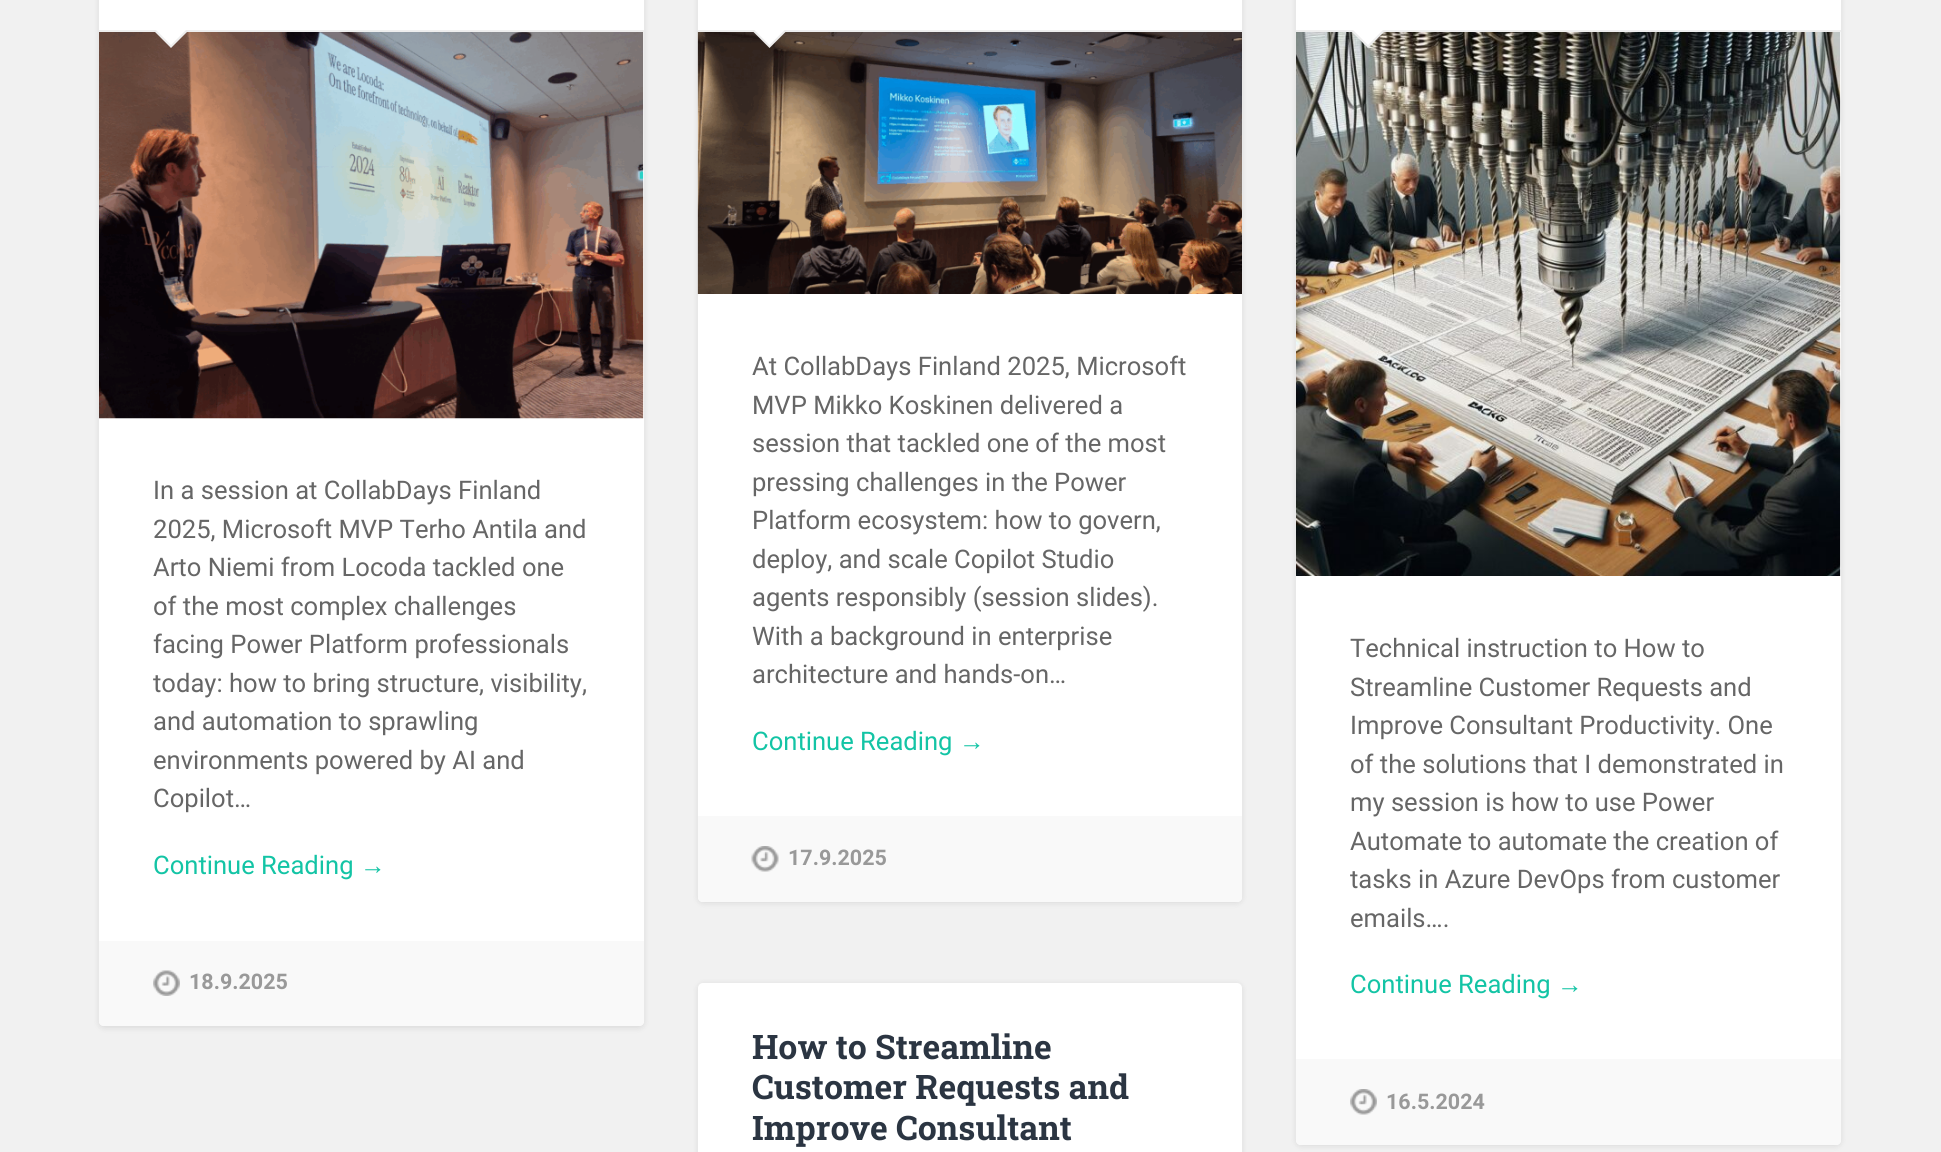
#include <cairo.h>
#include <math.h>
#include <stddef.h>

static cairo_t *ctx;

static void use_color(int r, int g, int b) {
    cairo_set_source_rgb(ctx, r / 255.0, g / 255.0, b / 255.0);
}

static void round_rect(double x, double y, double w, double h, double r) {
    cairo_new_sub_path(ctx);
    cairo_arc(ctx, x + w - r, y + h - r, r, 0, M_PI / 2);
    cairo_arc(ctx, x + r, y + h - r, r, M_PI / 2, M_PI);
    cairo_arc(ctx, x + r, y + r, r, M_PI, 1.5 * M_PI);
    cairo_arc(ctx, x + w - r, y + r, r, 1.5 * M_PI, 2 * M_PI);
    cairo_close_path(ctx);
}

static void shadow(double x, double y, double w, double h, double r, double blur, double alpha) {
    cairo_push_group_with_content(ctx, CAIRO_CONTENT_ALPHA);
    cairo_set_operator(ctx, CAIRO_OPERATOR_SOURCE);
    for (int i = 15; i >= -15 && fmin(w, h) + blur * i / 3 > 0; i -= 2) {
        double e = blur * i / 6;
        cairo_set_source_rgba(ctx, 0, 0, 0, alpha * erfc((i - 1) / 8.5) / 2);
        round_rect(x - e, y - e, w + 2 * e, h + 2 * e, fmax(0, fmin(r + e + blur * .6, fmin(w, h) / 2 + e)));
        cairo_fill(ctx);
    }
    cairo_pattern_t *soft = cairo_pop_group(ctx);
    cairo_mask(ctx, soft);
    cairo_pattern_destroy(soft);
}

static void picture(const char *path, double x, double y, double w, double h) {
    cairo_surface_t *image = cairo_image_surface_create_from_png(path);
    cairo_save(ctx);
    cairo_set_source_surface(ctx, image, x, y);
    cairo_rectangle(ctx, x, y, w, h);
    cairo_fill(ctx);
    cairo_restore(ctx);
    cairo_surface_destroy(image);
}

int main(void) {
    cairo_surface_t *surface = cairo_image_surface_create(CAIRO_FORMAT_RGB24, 1941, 1152);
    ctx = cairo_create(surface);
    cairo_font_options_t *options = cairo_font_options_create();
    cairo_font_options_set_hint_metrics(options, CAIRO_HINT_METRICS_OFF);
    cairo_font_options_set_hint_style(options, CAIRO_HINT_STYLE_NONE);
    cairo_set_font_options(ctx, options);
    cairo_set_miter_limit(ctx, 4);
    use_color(241, 241, 241);
    cairo_paint(ctx);
    use_color(0, 0, 0);
    shadow(99, -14, 545, 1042, 5, 3, 0.1);
    use_color(255, 255, 255);
    round_rect(99, -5, 545, 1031, 5);
    cairo_fill(ctx);
    use_color(238, 238, 238);
    cairo_rectangle(ctx, 99, 30, 545, 2);
    cairo_fill(ctx);
    picture("img1.png", 99, 32, 545, 387);
    cairo_new_path(ctx);
    cairo_move_to(ctx, 153, 30);
    cairo_line_to(ctx, 189, 30);
    cairo_line_to(ctx, 171, 48);
    cairo_close_path(ctx);
    cairo_fill(ctx);
    use_color(255, 255, 255);
    cairo_new_path(ctx);
    cairo_move_to(ctx, 154.5, 28.5);
    cairo_line_to(ctx, 187.5, 28.5);
    cairo_line_to(ctx, 171, 45);
    cairo_close_path(ctx);
    cairo_fill(ctx);
    cairo_select_font_face(ctx, "Roboto", CAIRO_FONT_SLANT_NORMAL, CAIRO_FONT_WEIGHT_NORMAL);
    cairo_set_font_size(ctx, 25.6);
    use_color(102, 102, 102);
    cairo_move_to(ctx, 153, 499);
    cairo_show_text(ctx, "In a session at CollabDays Finland");
    cairo_move_to(ctx, 153, 538);
    cairo_show_text(ctx, "2025, Microsoft MVP Terho Antila and");
    cairo_move_to(ctx, 153, 576);
    cairo_show_text(ctx, "Arto Niemi from Locoda tackled one");
    cairo_move_to(ctx, 153, 615);
    cairo_show_text(ctx, "of the most complex challenges");
    cairo_move_to(ctx, 153, 653);
    cairo_show_text(ctx, "facing Power Platform professionals");
    cairo_move_to(ctx, 153, 692);
    cairo_show_text(ctx, "today: how to bring structure, visibility,");
    cairo_move_to(ctx, 153, 730);
    cairo_show_text(ctx, "and automation to sprawling");
    cairo_move_to(ctx, 153, 769);
    cairo_show_text(ctx, "environments powered by AI and");
    cairo_move_to(ctx, 153, 807);
    cairo_show_text(ctx, "Copilot…");
    use_color(19, 196, 165);
    cairo_move_to(ctx, 153, 874);
    cairo_show_text(ctx, "Continue Reading");
    cairo_select_font_face(ctx, "Liberation Sans", CAIRO_FONT_SLANT_NORMAL, CAIRO_FONT_WEIGHT_NORMAL);
    cairo_move_to(ctx, 360, 874);
    cairo_show_text(ctx, "→");
    use_color(249, 249, 249);
    cairo_new_path(ctx);
    cairo_move_to(ctx, 99, 941);
    cairo_line_to(ctx, 644, 941);
    cairo_line_to(ctx, 644, 1021);
    cairo_curve_to(ctx, 644, 1024, 642, 1026, 639, 1026);
    cairo_line_to(ctx, 104, 1026);
    cairo_curve_to(ctx, 101, 1026, 99, 1024, 99, 1021);
    cairo_close_path(ctx);
    cairo_fill(ctx);
    picture("img2.png", 153, 970, 27, 26);
    cairo_select_font_face(ctx, "Roboto", CAIRO_FONT_SLANT_NORMAL, CAIRO_FONT_WEIGHT_BOLD);
    cairo_set_font_size(ctx, 21.5);
    use_color(153, 153, 153);
    cairo_move_to(ctx, 189, 989);
    cairo_show_text(ctx, "18.9.2025");
    use_color(0, 0, 0);
    shadow(698, -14, 544, 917, 5, 3, 0.1);
    use_color(255, 255, 255);
    round_rect(698, -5, 544, 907, 5);
    cairo_fill(ctx);
    picture("img3.png", 697, 31, 545, 263);
    use_color(238, 238, 238);
    cairo_rectangle(ctx, 698, 30, 544, 2);
    cairo_fill(ctx);
    cairo_new_path(ctx);
    cairo_move_to(ctx, 751.5, 30);
    cairo_line_to(ctx, 787.5, 30);
    cairo_line_to(ctx, 769.5, 48);
    cairo_close_path(ctx);
    cairo_fill(ctx);
    use_color(255, 255, 255);
    cairo_new_path(ctx);
    cairo_move_to(ctx, 753, 28.5);
    cairo_line_to(ctx, 786, 28.5);
    cairo_line_to(ctx, 769.5, 45);
    cairo_close_path(ctx);
    cairo_fill(ctx);
    cairo_select_font_face(ctx, "Roboto", CAIRO_FONT_SLANT_NORMAL, CAIRO_FONT_WEIGHT_NORMAL);
    cairo_set_font_size(ctx, 25.6);
    use_color(102, 102, 102);
    cairo_move_to(ctx, 752, 375);
    cairo_show_text(ctx, "At CollabDays Finland 2025, Microsoft");
    cairo_move_to(ctx, 752, 414);
    cairo_show_text(ctx, "MVP Mikko Koskinen delivered a");
    cairo_move_to(ctx, 752, 452);
    cairo_show_text(ctx, "session that tackled one of the most");
    cairo_move_to(ctx, 752, 491);
    cairo_show_text(ctx, "pressing challenges in the Power");
    cairo_move_to(ctx, 752, 529);
    cairo_show_text(ctx, "Platform ecosystem: how to govern,");
    cairo_move_to(ctx, 752, 568);
    cairo_show_text(ctx, "deploy, and scale Copilot Studio");
    cairo_move_to(ctx, 752, 606);
    cairo_show_text(ctx, "agents responsibly (session slides).");
    cairo_move_to(ctx, 752, 645);
    cairo_show_text(ctx, "With a background in enterprise");
    cairo_move_to(ctx, 752, 683);
    cairo_show_text(ctx, "architecture and hands-on…");
    use_color(19, 196, 165);
    cairo_move_to(ctx, 752, 750);
    cairo_show_text(ctx, "Continue Reading");
    cairo_select_font_face(ctx, "Liberation Sans", CAIRO_FONT_SLANT_NORMAL, CAIRO_FONT_WEIGHT_NORMAL);
    cairo_move_to(ctx, 959, 750);
    cairo_show_text(ctx, "→");
    use_color(249, 249, 249);
    cairo_new_path(ctx);
    cairo_move_to(ctx, 698, 816);
    cairo_line_to(ctx, 1242, 816);
    cairo_line_to(ctx, 1242, 897);
    cairo_curve_to(ctx, 1242, 900, 1240, 902, 1237, 902);
    cairo_line_to(ctx, 703, 902);
    cairo_curve_to(ctx, 700, 902, 698, 900, 698, 897);
    cairo_close_path(ctx);
    cairo_fill(ctx);
    picture("img4.png", 751, 846, 28, 26);
    cairo_select_font_face(ctx, "Roboto", CAIRO_FONT_SLANT_NORMAL, CAIRO_FONT_WEIGHT_BOLD);
    cairo_set_font_size(ctx, 21.5);
    use_color(153, 153, 153);
    cairo_move_to(ctx, 788, 865);
    cairo_show_text(ctx, "17.9.2025");
    use_color(0, 0, 0);
    shadow(1296, -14, 545, 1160, 5, 3, 0.1);
    use_color(255, 255, 255);
    round_rect(1296, -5, 545, 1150, 5);
    cairo_fill(ctx);
    use_color(238, 238, 238);
    cairo_rectangle(ctx, 1296, 30, 545, 2);
    cairo_fill(ctx);
    picture("img5.png", 1296, 32, 545, 544);
    cairo_new_path(ctx);
    cairo_move_to(ctx, 1350, 30);
    cairo_line_to(ctx, 1386, 30);
    cairo_line_to(ctx, 1368, 48);
    cairo_close_path(ctx);
    cairo_fill(ctx);
    use_color(255, 255, 255);
    cairo_new_path(ctx);
    cairo_move_to(ctx, 1351.5, 28.5);
    cairo_line_to(ctx, 1384.5, 28.5);
    cairo_line_to(ctx, 1368, 45);
    cairo_close_path(ctx);
    cairo_fill(ctx);
    cairo_select_font_face(ctx, "Roboto", CAIRO_FONT_SLANT_NORMAL, CAIRO_FONT_WEIGHT_NORMAL);
    cairo_set_font_size(ctx, 25.6);
    use_color(102, 102, 102);
    cairo_move_to(ctx, 1350, 657);
    cairo_show_text(ctx, "Technical instruction to How to");
    cairo_move_to(ctx, 1350, 696);
    cairo_show_text(ctx, "Streamline Customer Requests and");
    cairo_move_to(ctx, 1350, 734);
    cairo_show_text(ctx, "Improve Consultant Productivity. One");
    cairo_move_to(ctx, 1350, 773);
    cairo_show_text(ctx, "of the solutions that I demonstrated in");
    cairo_move_to(ctx, 1350, 811);
    cairo_show_text(ctx, "my session is how to use Power");
    cairo_move_to(ctx, 1350, 850);
    cairo_show_text(ctx, "Automate to automate the creation of");
    cairo_move_to(ctx, 1350, 888);
    cairo_show_text(ctx, "tasks in Azure DevOps from customer");
    cairo_move_to(ctx, 1350, 927);
    cairo_show_text(ctx, "emails….");
    use_color(19, 196, 165);
    cairo_move_to(ctx, 1350, 993);
    cairo_show_text(ctx, "Continue Reading");
    cairo_select_font_face(ctx, "Liberation Sans", CAIRO_FONT_SLANT_NORMAL, CAIRO_FONT_WEIGHT_NORMAL);
    cairo_move_to(ctx, 1557, 993);
    cairo_show_text(ctx, "→");
    use_color(249, 249, 249);
    cairo_new_path(ctx);
    cairo_move_to(ctx, 1296, 1059);
    cairo_line_to(ctx, 1841, 1059);
    cairo_line_to(ctx, 1841, 1140);
    cairo_curve_to(ctx, 1841, 1143, 1839, 1145, 1836, 1145);
    cairo_line_to(ctx, 1301, 1145);
    cairo_curve_to(ctx, 1298, 1145, 1296, 1143, 1296, 1140);
    cairo_close_path(ctx);
    cairo_fill(ctx);
    picture("img6.png", 1350, 1089, 27, 26);
    cairo_select_font_face(ctx, "Roboto", CAIRO_FONT_SLANT_NORMAL, CAIRO_FONT_WEIGHT_BOLD);
    cairo_set_font_size(ctx, 21.5);
    use_color(153, 153, 153);
    cairo_move_to(ctx, 1386, 1109);
    cairo_show_text(ctx, "16.5.2024");
    use_color(0, 0, 0);
    shadow(698, 984, 544, 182, 5, 3, 0.1);
    use_color(255, 255, 255);
    round_rect(698, 983, 544, 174, 5);
    cairo_fill(ctx);
    cairo_select_font_face(ctx, "Roboto Slab", CAIRO_FONT_SLANT_NORMAL, CAIRO_FONT_WEIGHT_BOLD);
    cairo_set_font_size(ctx, 33.75);
    use_color(43, 53, 66);
    cairo_move_to(ctx, 752, 1059);
    cairo_show_text(ctx, "How to Streamline");
    cairo_move_to(ctx, 752, 1099);
    cairo_show_text(ctx, "Customer Requests and");
    cairo_move_to(ctx, 752, 1140);
    cairo_show_text(ctx, "Improve Consultant");
    cairo_surface_write_to_png(surface, "result.png");
    cairo_font_options_destroy(options);
    cairo_destroy(ctx);
    cairo_surface_destroy(surface);
    return 0;
}
